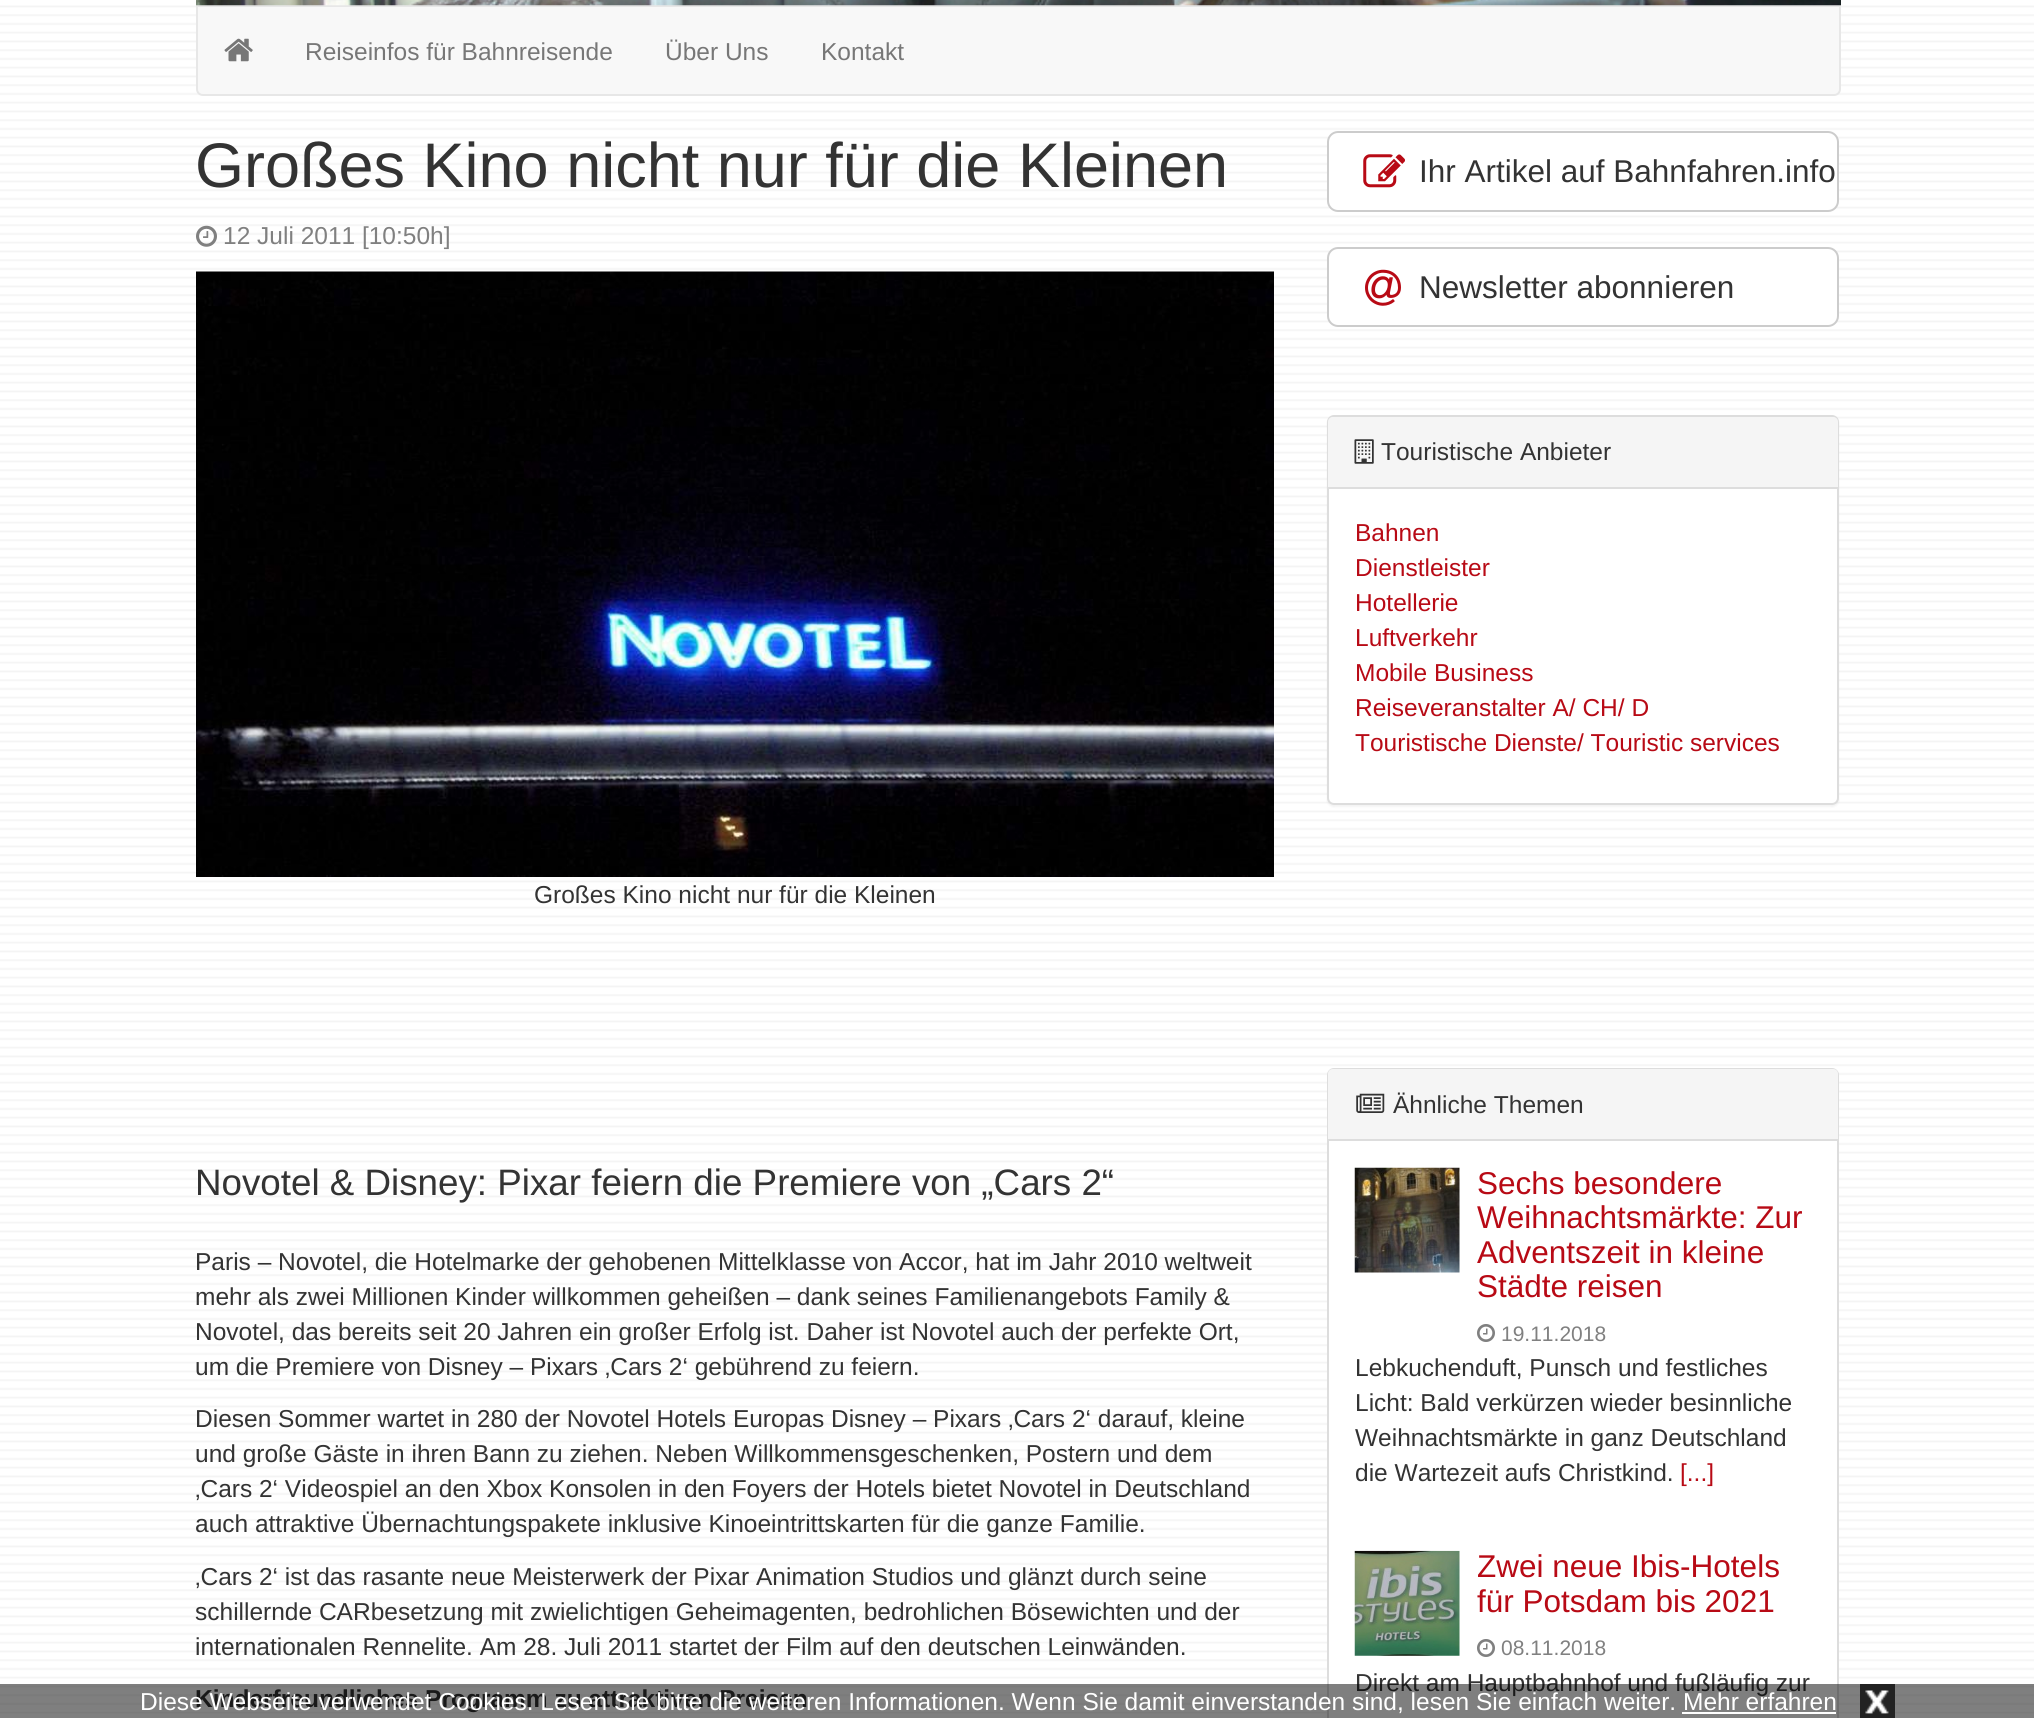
#include <cairo.h>
#include <math.h>
#include <stddef.h>

static cairo_t *ctx;

static void use_color(int r, int g, int b) {
    cairo_set_source_rgb(ctx, r / 255.0, g / 255.0, b / 255.0);
}

static void round_rect(double x, double y, double w, double h, double r) {
    cairo_new_sub_path(ctx);
    cairo_arc(ctx, x + w - r, y + h - r, r, 0, M_PI / 2);
    cairo_arc(ctx, x + r, y + h - r, r, M_PI / 2, M_PI);
    cairo_arc(ctx, x + r, y + r, r, M_PI, 1.5 * M_PI);
    cairo_arc(ctx, x + w - r, y + r, r, 1.5 * M_PI, 2 * M_PI);
    cairo_close_path(ctx);
}

static void shadow(double x, double y, double w, double h, double r, double blur, double alpha) {
    cairo_push_group_with_content(ctx, CAIRO_CONTENT_ALPHA);
    cairo_set_operator(ctx, CAIRO_OPERATOR_SOURCE);
    for (int i = 15; i >= -15 && fmin(w, h) + blur * i / 3 > 0; i -= 2) {
        double e = blur * i / 6;
        cairo_set_source_rgba(ctx, 0, 0, 0, alpha * erfc((i - 1) / 8.5) / 2);
        round_rect(x - e, y - e, w + 2 * e, h + 2 * e, fmax(0, fmin(r + e + blur * .6, fmin(w, h) / 2 + e)));
        cairo_fill(ctx);
    }
    cairo_pattern_t *soft = cairo_pop_group(ctx);
    cairo_mask(ctx, soft);
    cairo_pattern_destroy(soft);
}

static void picture(const char *path, double x, double y, double w, double h) {
    cairo_surface_t *image = cairo_image_surface_create_from_png(path);
    cairo_save(ctx);
    cairo_set_source_surface(ctx, image, x, y);
    cairo_rectangle(ctx, x, y, w, h);
    cairo_fill(ctx);
    cairo_restore(ctx);
    cairo_surface_destroy(image);
}

int main(void) {
    cairo_surface_t *surface = cairo_image_surface_create(CAIRO_FORMAT_RGB24, 2034, 1718);
    ctx = cairo_create(surface);
    cairo_font_options_t *options = cairo_font_options_create();
    cairo_font_options_set_hint_metrics(options, CAIRO_HINT_METRICS_OFF);
    cairo_font_options_set_hint_style(options, CAIRO_HINT_STYLE_NONE);
    cairo_set_font_options(ctx, options);
    cairo_set_miter_limit(ctx, 4);
    use_color(255, 255, 255);
    cairo_paint(ctx);
    picture("img1.png", 0, 5, 2034, 1709);
    use_color(248, 248, 248);
    cairo_new_path(ctx);
    cairo_move_to(ctx, 197, 6);
    cairo_line_to(ctx, 1840, 6);
    cairo_line_to(ctx, 1840, 89);
    cairo_curve_to(ctx, 1840, 92.5, 1837.5, 95, 1834, 95);
    cairo_line_to(ctx, 203, 95);
    cairo_curve_to(ctx, 199.5, 95, 197, 92.5, 197, 89);
    cairo_close_path(ctx);
    cairo_fill_preserve(ctx);
    use_color(231, 231, 231);
    cairo_stroke(ctx);
    picture("img2.png", 196, 0, 1645, 6);
    picture("img3.png", 224, 38, 29, 24);
    cairo_select_font_face(ctx, "Liberation Sans", CAIRO_FONT_SLANT_NORMAL, CAIRO_FONT_WEIGHT_NORMAL);
    cairo_set_font_size(ctx, 24.5);
    use_color(119, 119, 119);
    cairo_move_to(ctx, 305, 60);
    cairo_show_text(ctx, "Reiseinfos für Bahnreisende");
    cairo_move_to(ctx, 665, 60);
    cairo_show_text(ctx, "Über Uns");
    cairo_move_to(ctx, 821, 60);
    cairo_show_text(ctx, "Kontakt");
    cairo_set_font_size(ctx, 63);
    use_color(51, 51, 51);
    cairo_move_to(ctx, 195, 187);
    cairo_show_text(ctx, "Großes Kino nicht nur für die Kleinen");
    picture("img4.png", 196, 225, 21, 22);
    cairo_set_font_size(ctx, 24.5);
    use_color(128, 128, 128);
    cairo_move_to(ctx, 223, 244);
    cairo_show_text(ctx, "12 Juli 2011 [10:50h]");
    picture("img5.png", 196, 271, 1078, 606);
    use_color(51, 51, 51);
    cairo_move_to(ctx, 534, 903);
    cairo_show_text(ctx, "Großes Kino nicht nur für die Kleinen");
    cairo_set_font_size(ctx, 36.75);
    cairo_move_to(ctx, 195, 1195);
    cairo_show_text(ctx, "Novotel & Disney: Pixar feiern die Premiere von „Cars 2“");
    cairo_set_font_size(ctx, 24.5);
    cairo_move_to(ctx, 195, 1270);
    cairo_show_text(ctx, "Paris – Novotel, die Hotelmarke der gehobenen Mittelklasse von Accor, hat im Jahr 2010 weltweit");
    cairo_move_to(ctx, 195, 1305);
    cairo_show_text(ctx, "mehr als zwei Millionen Kinder willkommen geheißen – dank seines Familienangebots Family &");
    cairo_move_to(ctx, 195, 1340);
    cairo_show_text(ctx, "Novotel, das bereits seit 20 Jahren ein großer Erfolg ist. Daher ist Novotel auch der perfekte Ort,");
    cairo_move_to(ctx, 195, 1375);
    cairo_show_text(ctx, "um die Premiere von Disney – Pixars ‚Cars 2‘ gebührend zu feiern.");
    cairo_move_to(ctx, 195, 1427);
    cairo_show_text(ctx, "Diesen Sommer wartet in 280 der Novotel Hotels Europas Disney – Pixars ‚Cars 2‘ darauf, kleine");
    cairo_move_to(ctx, 195, 1462);
    cairo_show_text(ctx, "und große Gäste in ihren Bann zu ziehen. Neben Willkommensgeschenken, Postern und dem");
    cairo_move_to(ctx, 195, 1497);
    cairo_show_text(ctx, "‚Cars 2‘ Videospiel an den Xbox Konsolen in den Foyers der Hotels bietet Novotel in Deutschland");
    cairo_move_to(ctx, 195, 1532);
    cairo_show_text(ctx, "auch attraktive Übernachtungspakete inklusive Kinoeintrittskarten für die ganze Familie.");
    cairo_move_to(ctx, 195, 1585);
    cairo_show_text(ctx, "‚Cars 2‘ ist das rasante neue Meisterwerk der Pixar Animation Studios und glänzt durch seine");
    cairo_move_to(ctx, 195, 1620);
    cairo_show_text(ctx, "schillernde CARbesetzung mit zwielichtigen Geheimagenten, bedrohlichen Bösewichten und der");
    cairo_move_to(ctx, 195, 1655);
    cairo_show_text(ctx, "internationalen Rennelite. Am 28. Juli 2011 startet der Film auf den deutschen Leinwänden.");
    cairo_select_font_face(ctx, "Liberation Sans", CAIRO_FONT_SLANT_NORMAL, CAIRO_FONT_WEIGHT_BOLD);
    cairo_move_to(ctx, 195, 1707);
    cairo_show_text(ctx, "Kinderfreundliches Programm zu attraktiven Preisen");
    use_color(255, 255, 255);
    round_rect(1328, 132, 510, 79, 10);
    cairo_fill_preserve(ctx);
    use_color(204, 204, 204);
    cairo_stroke(ctx);
    picture("img6.png", 1363, 154, 42, 34);
    cairo_select_font_face(ctx, "Liberation Sans", CAIRO_FONT_SLANT_NORMAL, CAIRO_FONT_WEIGHT_NORMAL);
    cairo_set_font_size(ctx, 31.5);
    use_color(51, 51, 51);
    cairo_move_to(ctx, 1419, 182);
    cairo_show_text(ctx, "Ihr Artikel auf Bahnfahren.info");
    use_color(255, 255, 255);
    round_rect(1328, 248, 510, 78, 10);
    cairo_fill_preserve(ctx);
    use_color(204, 204, 204);
    cairo_stroke(ctx);
    picture("img7.png", 1365, 269, 36, 37);
    use_color(51, 51, 51);
    cairo_move_to(ctx, 1419, 298);
    cairo_show_text(ctx, "Newsletter abonnieren");
    use_color(0, 0, 0);
    shadow(1327, 417, 512, 390, 7, 1, 0.05);
    use_color(255, 255, 255);
    round_rect(1328, 416, 510, 388, 6);
    cairo_fill_preserve(ctx);
    use_color(221, 221, 221);
    cairo_stroke(ctx);
    use_color(245, 245, 245);
    cairo_new_path(ctx);
    cairo_move_to(ctx, 1333, 417);
    cairo_line_to(ctx, 1833, 417);
    cairo_curve_to(ctx, 1836, 417, 1838, 419, 1838, 422);
    cairo_line_to(ctx, 1838, 488);
    cairo_line_to(ctx, 1328, 488);
    cairo_line_to(ctx, 1328, 422);
    cairo_curve_to(ctx, 1328, 419, 1330, 417, 1333, 417);
    cairo_close_path(ctx);
    cairo_fill(ctx);
    use_color(221, 221, 221);
    cairo_rectangle(ctx, 1328, 487, 510, 2);
    cairo_fill(ctx);
    picture("img8.png", 1354, 439, 20, 25);
    cairo_set_font_size(ctx, 24.5);
    use_color(51, 51, 51);
    cairo_move_to(ctx, 1381, 460);
    cairo_show_text(ctx, "Touristische Anbieter");
    use_color(184, 10, 21);
    cairo_move_to(ctx, 1355, 541);
    cairo_show_text(ctx, "Bahnen");
    cairo_move_to(ctx, 1355, 576);
    cairo_show_text(ctx, "Dienstleister");
    cairo_move_to(ctx, 1355, 611);
    cairo_show_text(ctx, "Hotellerie");
    cairo_move_to(ctx, 1355, 646);
    cairo_show_text(ctx, "Luftverkehr");
    cairo_move_to(ctx, 1355, 681);
    cairo_show_text(ctx, "Mobile Business");
    cairo_move_to(ctx, 1355, 716);
    cairo_show_text(ctx, "Reiseveranstalter A/ CH/ D");
    cairo_move_to(ctx, 1355, 751);
    cairo_show_text(ctx, "Touristische Dienste/ Touristic services");
    use_color(255, 255, 255);
    round_rect(1328, 1069, 510, 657, 6);
    cairo_fill_preserve(ctx);
    use_color(221, 221, 221);
    cairo_stroke(ctx);
    use_color(245, 245, 245);
    cairo_new_path(ctx);
    cairo_move_to(ctx, 1333, 1069);
    cairo_line_to(ctx, 1833, 1069);
    cairo_curve_to(ctx, 1836, 1069, 1838, 1071, 1838, 1074);
    cairo_line_to(ctx, 1838, 1141);
    cairo_line_to(ctx, 1328, 1141);
    cairo_line_to(ctx, 1328, 1074);
    cairo_curve_to(ctx, 1328, 1071, 1330, 1069, 1333, 1069);
    cairo_close_path(ctx);
    cairo_fill(ctx);
    use_color(221, 221, 221);
    cairo_rectangle(ctx, 1328, 1139, 510, 2);
    cairo_fill(ctx);
    picture("img9.png", 1356, 1093, 29, 20);
    use_color(51, 51, 51);
    cairo_move_to(ctx, 1393, 1113);
    cairo_show_text(ctx, "Ähnliche Themen");
    picture("img10.png", 1354, 1167, 106, 106);
    cairo_set_font_size(ctx, 31.5);
    use_color(184, 10, 21);
    cairo_move_to(ctx, 1477, 1194);
    cairo_show_text(ctx, "Sechs besondere");
    cairo_move_to(ctx, 1477, 1228);
    cairo_show_text(ctx, "Weihnachtsmärkte: Zur");
    cairo_move_to(ctx, 1477, 1263);
    cairo_show_text(ctx, "Adventszeit in kleine");
    cairo_move_to(ctx, 1477, 1297);
    cairo_show_text(ctx, "Städte reisen");
    picture("img11.png", 1477, 1324, 18, 18);
    cairo_set_font_size(ctx, 21);
    use_color(128, 128, 128);
    cairo_move_to(ctx, 1501, 1341);
    cairo_show_text(ctx, "19.11.2018");
    cairo_set_font_size(ctx, 24.5);
    use_color(51, 51, 51);
    cairo_move_to(ctx, 1355, 1376);
    cairo_show_text(ctx, "Lebkuchenduft, Punsch und festliches");
    cairo_move_to(ctx, 1355, 1411);
    cairo_show_text(ctx, "Licht: Bald verkürzen wieder besinnliche");
    cairo_move_to(ctx, 1355, 1446);
    cairo_show_text(ctx, "Weihnachtsmärkte in ganz Deutschland");
    cairo_move_to(ctx, 1355, 1481);
    cairo_show_text(ctx, "die Wartezeit aufs Christkind.");
    use_color(184, 10, 21);
    cairo_move_to(ctx, 1680, 1481);
    cairo_show_text(ctx, "[...]");
    picture("img12.png", 1354, 1550, 106, 106);
    cairo_set_font_size(ctx, 31.5);
    cairo_move_to(ctx, 1477, 1577);
    cairo_show_text(ctx, "Zwei neue Ibis-Hotels");
    cairo_move_to(ctx, 1477, 1612);
    cairo_show_text(ctx, "für Potsdam bis 2021");
    picture("img11.png", 1477, 1639, 18, 18);
    cairo_set_font_size(ctx, 21);
    use_color(128, 128, 128);
    cairo_move_to(ctx, 1501, 1655);
    cairo_show_text(ctx, "08.11.2018");
    cairo_set_font_size(ctx, 24.5);
    use_color(51, 51, 51);
    cairo_move_to(ctx, 1355, 1691);
    cairo_show_text(ctx, "Direkt am Hauptbahnhof und fußläufig zur");
    cairo_set_source_rgba(ctx, 0, 0, 0, 0.5);
    cairo_rectangle(ctx, 0, 1684, 2034, 34);
    cairo_fill(ctx);
    use_color(255, 255, 255);
    cairo_move_to(ctx, 140, 1710);
    cairo_show_text(ctx, "Diese Webseite verwendet Cookies. Lesen Sie bitte die weiteren Informationen. Wenn Sie damit einverstanden sind, lesen Sie einfach weiter. Mehr erfahren");
    use_color(34, 34, 34);
    cairo_rectangle(ctx, 1860, 1684, 35, 34);
    cairo_fill(ctx);
    picture("img13.png", 1865, 1690, 24, 24);
    use_color(255, 255, 255);
    cairo_rectangle(ctx, 1682, 1712, 154, 2);
    cairo_fill(ctx);
    cairo_surface_write_to_png(surface, "result.png");
    cairo_font_options_destroy(options);
    cairo_destroy(ctx);
    cairo_surface_destroy(surface);
    return 0;
}
